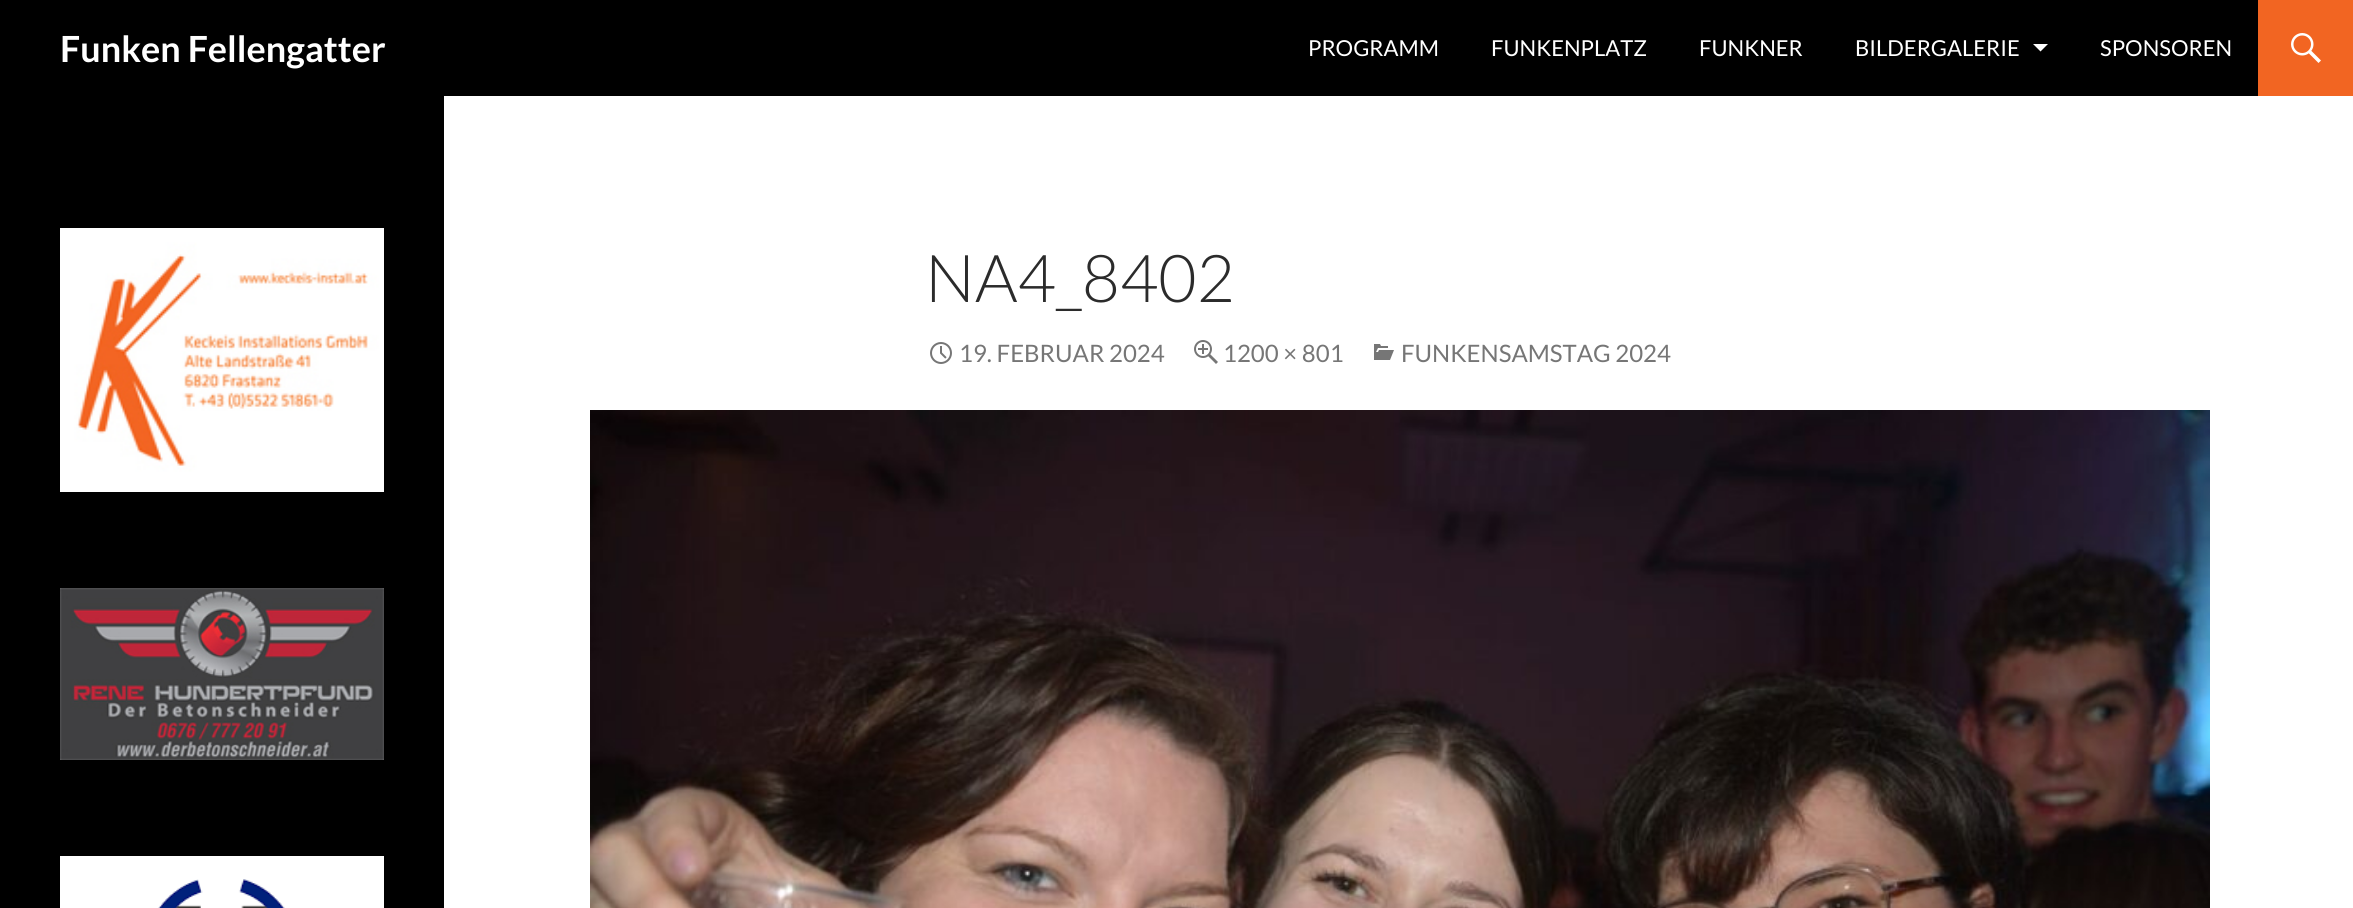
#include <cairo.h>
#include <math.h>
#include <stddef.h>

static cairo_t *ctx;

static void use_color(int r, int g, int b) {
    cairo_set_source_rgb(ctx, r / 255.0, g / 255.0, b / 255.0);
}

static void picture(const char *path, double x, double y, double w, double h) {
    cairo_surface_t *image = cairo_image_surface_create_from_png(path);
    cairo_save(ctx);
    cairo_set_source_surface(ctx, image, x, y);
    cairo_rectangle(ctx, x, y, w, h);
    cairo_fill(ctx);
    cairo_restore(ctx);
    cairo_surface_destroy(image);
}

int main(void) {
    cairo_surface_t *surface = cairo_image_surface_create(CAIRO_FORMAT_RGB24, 2353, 908);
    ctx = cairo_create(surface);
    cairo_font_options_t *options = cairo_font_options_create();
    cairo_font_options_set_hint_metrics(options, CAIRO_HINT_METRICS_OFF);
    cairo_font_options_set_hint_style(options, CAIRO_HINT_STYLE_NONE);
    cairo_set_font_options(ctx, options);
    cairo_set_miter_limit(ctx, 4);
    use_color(255, 255, 255);
    cairo_paint(ctx);
    use_color(0, 0, 0);
    cairo_rectangle(ctx, 0, 0, 2258, 96);
    cairo_fill(ctx);
    cairo_select_font_face(ctx, "Lato", CAIRO_FONT_SLANT_NORMAL, CAIRO_FONT_WEIGHT_BOLD);
    cairo_set_font_size(ctx, 36);
    use_color(255, 255, 255);
    cairo_move_to(ctx, 60, 62);
    cairo_show_text(ctx, "Funken Fellengatter");
    cairo_select_font_face(ctx, "Lato", CAIRO_FONT_SLANT_NORMAL, CAIRO_FONT_WEIGHT_NORMAL);
    cairo_set_font_size(ctx, 22);
    cairo_move_to(ctx, 1308, 56);
    cairo_show_text(ctx, "PROGRAMM");
    cairo_move_to(ctx, 1491, 56);
    cairo_show_text(ctx, "FUNKENPLATZ");
    cairo_move_to(ctx, 1699, 56);
    cairo_show_text(ctx, "FUNKNER");
    cairo_move_to(ctx, 1855, 56);
    cairo_show_text(ctx, "BILDERGALERIE");
    cairo_new_path(ctx);
    cairo_move_to(ctx, 2033, 44);
    cairo_line_to(ctx, 2040.5, 51.5);
    cairo_line_to(ctx, 2048, 44);
    cairo_close_path(ctx);
    cairo_fill(ctx);
    cairo_move_to(ctx, 2100, 56);
    cairo_show_text(ctx, "SPONSOREN");
    use_color(242, 101, 34);
    cairo_rectangle(ctx, 2258, 0, 95, 96);
    cairo_fill(ctx);
    picture("img1.png", 2291, 33, 30, 30);
    use_color(0, 0, 0);
    cairo_rectangle(ctx, 0, 96, 444, 812);
    cairo_fill(ctx);
    picture("img2.png", 60, 228, 324, 264);
    picture("img3.png", 60, 588, 324, 172);
    picture("img4.png", 60, 856, 324, 52);
    cairo_select_font_face(ctx, "Lato Light", CAIRO_FONT_SLANT_NORMAL, CAIRO_FONT_WEIGHT_NORMAL);
    cairo_set_font_size(ctx, 66);
    use_color(43, 43, 43);
    cairo_move_to(ctx, 925, 302);
    cairo_show_text(ctx, "NA4_8402");
    picture("img5.png", 930, 342, 22, 22);
    cairo_select_font_face(ctx, "Lato", CAIRO_FONT_SLANT_NORMAL, CAIRO_FONT_WEIGHT_NORMAL);
    cairo_set_font_size(ctx, 24);
    use_color(118, 118, 118);
    cairo_move_to(ctx, 959, 362);
    cairo_show_text(ctx, "19. FEBRUAR 2024");
    picture("img6.png", 1194, 340, 24, 24);
    cairo_move_to(ctx, 1223, 362);
    cairo_show_text(ctx, "1200 × 801");
    picture("img7.png", 1374, 344, 20, 16);
    cairo_move_to(ctx, 1401, 362);
    cairo_show_text(ctx, "FUNKENSAMSTAG 2024");
    picture("img8.png", 590, 410, 1620, 498);
    cairo_surface_write_to_png(surface, "result.png");
    cairo_font_options_destroy(options);
    cairo_destroy(ctx);
    cairo_surface_destroy(surface);
    return 0;
}
